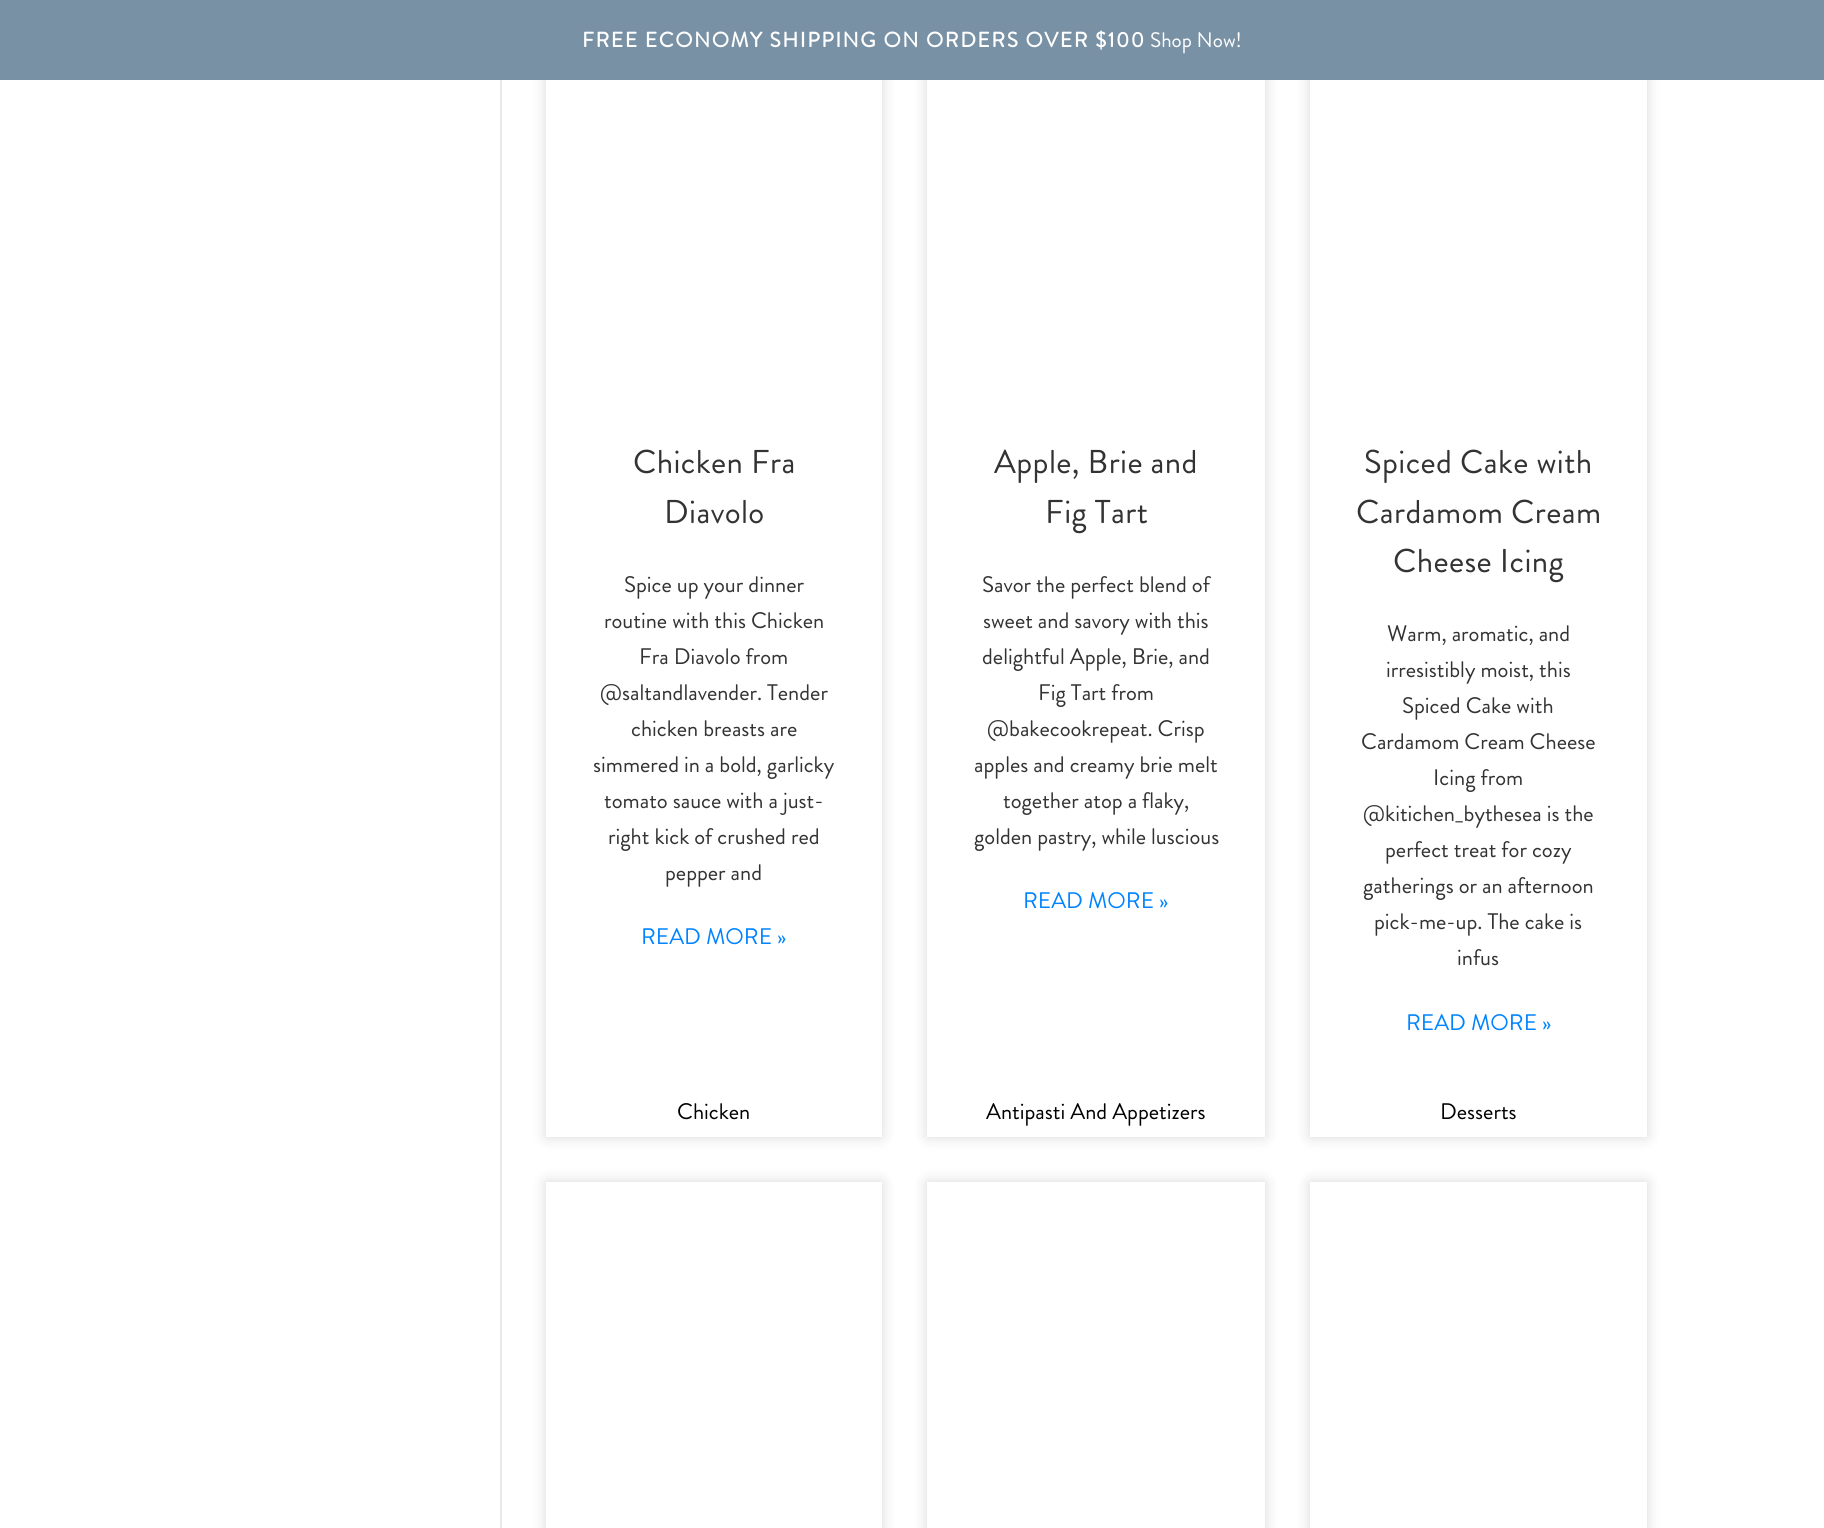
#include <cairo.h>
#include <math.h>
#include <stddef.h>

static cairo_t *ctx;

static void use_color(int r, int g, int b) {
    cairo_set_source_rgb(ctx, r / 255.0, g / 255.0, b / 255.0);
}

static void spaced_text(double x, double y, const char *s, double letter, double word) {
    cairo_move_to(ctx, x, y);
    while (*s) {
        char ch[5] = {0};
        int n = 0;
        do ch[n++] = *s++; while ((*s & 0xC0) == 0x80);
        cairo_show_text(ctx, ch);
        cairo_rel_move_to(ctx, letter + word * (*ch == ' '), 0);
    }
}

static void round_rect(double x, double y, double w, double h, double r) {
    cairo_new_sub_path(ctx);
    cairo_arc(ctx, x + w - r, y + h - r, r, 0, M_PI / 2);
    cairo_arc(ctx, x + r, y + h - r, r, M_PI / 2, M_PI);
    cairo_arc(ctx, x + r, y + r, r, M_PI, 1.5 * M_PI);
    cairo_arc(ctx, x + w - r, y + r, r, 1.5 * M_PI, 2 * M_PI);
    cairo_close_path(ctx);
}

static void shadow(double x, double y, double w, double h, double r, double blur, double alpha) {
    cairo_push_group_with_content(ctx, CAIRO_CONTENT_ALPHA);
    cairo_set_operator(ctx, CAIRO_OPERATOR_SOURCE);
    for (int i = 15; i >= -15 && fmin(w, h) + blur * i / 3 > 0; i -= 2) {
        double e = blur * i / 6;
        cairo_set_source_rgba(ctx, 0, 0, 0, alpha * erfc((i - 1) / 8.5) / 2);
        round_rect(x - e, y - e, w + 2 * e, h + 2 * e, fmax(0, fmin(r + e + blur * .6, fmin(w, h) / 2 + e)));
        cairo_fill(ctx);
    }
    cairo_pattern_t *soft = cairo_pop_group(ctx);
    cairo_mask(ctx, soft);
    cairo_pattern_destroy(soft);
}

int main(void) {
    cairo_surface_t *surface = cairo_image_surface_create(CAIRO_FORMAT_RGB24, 1824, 1528);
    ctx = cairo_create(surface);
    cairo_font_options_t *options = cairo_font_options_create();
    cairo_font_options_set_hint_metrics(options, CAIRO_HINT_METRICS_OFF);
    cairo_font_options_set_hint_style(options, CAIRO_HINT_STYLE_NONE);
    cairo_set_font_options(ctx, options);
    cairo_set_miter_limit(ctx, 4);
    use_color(255, 255, 255);
    cairo_paint(ctx);
    cairo_save(ctx);
    cairo_set_fill_rule(ctx, CAIRO_FILL_RULE_EVEN_ODD);
    cairo_new_path(ctx);
    cairo_move_to(ctx, 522, 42);
    cairo_line_to(ctx, 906, 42);
    cairo_line_to(ctx, 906, 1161);
    cairo_line_to(ctx, 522, 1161);
    cairo_close_path(ctx);
    cairo_move_to(ctx, 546, 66);
    cairo_line_to(ctx, 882, 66);
    cairo_line_to(ctx, 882, 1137);
    cairo_line_to(ctx, 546, 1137);
    cairo_close_path(ctx);
    cairo_clip(ctx);
    use_color(0, 0, 0);
    shadow(546, 66, 336, 1071, 0, 7.5, 0.15);
    cairo_restore(ctx);
    cairo_save(ctx);
    cairo_set_fill_rule(ctx, CAIRO_FILL_RULE_EVEN_ODD);
    cairo_new_path(ctx);
    cairo_move_to(ctx, 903, 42);
    cairo_line_to(ctx, 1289, 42);
    cairo_line_to(ctx, 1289, 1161);
    cairo_line_to(ctx, 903, 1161);
    cairo_close_path(ctx);
    cairo_move_to(ctx, 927, 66);
    cairo_line_to(ctx, 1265, 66);
    cairo_line_to(ctx, 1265, 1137);
    cairo_line_to(ctx, 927, 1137);
    cairo_close_path(ctx);
    cairo_clip(ctx);
    use_color(0, 0, 0);
    shadow(927, 66, 338, 1071, 0, 7.5, 0.15);
    cairo_restore(ctx);
    cairo_save(ctx);
    cairo_set_fill_rule(ctx, CAIRO_FILL_RULE_EVEN_ODD);
    cairo_new_path(ctx);
    cairo_move_to(ctx, 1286, 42);
    cairo_line_to(ctx, 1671, 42);
    cairo_line_to(ctx, 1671, 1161);
    cairo_line_to(ctx, 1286, 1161);
    cairo_close_path(ctx);
    cairo_move_to(ctx, 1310, 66);
    cairo_line_to(ctx, 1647, 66);
    cairo_line_to(ctx, 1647, 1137);
    cairo_line_to(ctx, 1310, 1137);
    cairo_close_path(ctx);
    cairo_clip(ctx);
    use_color(0, 0, 0);
    shadow(1310, 66, 337, 1071, 0, 7.5, 0.15);
    cairo_restore(ctx);
    use_color(121, 145, 165);
    cairo_rectangle(ctx, 0, 0, 1824, 80);
    cairo_fill(ctx);
    cairo_select_font_face(ctx, "Brandon Grotesque", CAIRO_FONT_SLANT_NORMAL, CAIRO_FONT_WEIGHT_BOLD);
    cairo_set_font_size(ctx, 21);
    use_color(255, 255, 255);
    spaced_text(582, 47, "FREE ECONOMY SHIPPING ON ORDERS OVER $100", 1.5, 0);
    cairo_select_font_face(ctx, "Brandon Grotesque", CAIRO_FONT_SLANT_NORMAL, CAIRO_FONT_WEIGHT_NORMAL);
    cairo_move_to(ctx, 1150, 47);
    cairo_show_text(ctx, "Shop Now!");
    use_color(233, 233, 233);
    cairo_rectangle(ctx, 500, 80, 2, 1448);
    cairo_fill(ctx);
    cairo_set_font_size(ctx, 33);
    use_color(51, 51, 51);
    spaced_text(633, 473, "Chicken Fra", 0.4, 0);
    spaced_text(664, 523, "Diavolo", 0.4, 0);
    cairo_set_font_size(ctx, 22.5);
    cairo_move_to(ctx, 624, 592);
    cairo_show_text(ctx, "Spice up your dinner");
    cairo_move_to(ctx, 604, 628);
    cairo_show_text(ctx, "routine with this Chicken");
    cairo_move_to(ctx, 639, 664);
    cairo_show_text(ctx, "Fra Diavolo from");
    cairo_move_to(ctx, 600, 700);
    cairo_show_text(ctx, "@saltandlavender. Tender");
    cairo_move_to(ctx, 631, 736);
    cairo_show_text(ctx, "chicken breasts are");
    cairo_move_to(ctx, 593, 772);
    cairo_show_text(ctx, "simmered in a bold, garlicky");
    cairo_move_to(ctx, 604, 808);
    cairo_show_text(ctx, "tomato sauce with a just-");
    cairo_move_to(ctx, 608, 844);
    cairo_show_text(ctx, "right kick of crushed red");
    cairo_move_to(ctx, 665, 880);
    cairo_show_text(ctx, "pepper and");
    use_color(0, 131, 255);
    cairo_move_to(ctx, 641, 944);
    cairo_show_text(ctx, "READ MORE »");
    use_color(0, 0, 0);
    cairo_move_to(ctx, 677, 1119);
    cairo_show_text(ctx, "Chicken");
    cairo_set_font_size(ctx, 33);
    use_color(51, 51, 51);
    spaced_text(994, 473, "Apple, Brie and", 0.4, 0);
    spaced_text(1045, 523, "Fig Tart", 0.4, 0);
    cairo_set_font_size(ctx, 22.5);
    cairo_move_to(ctx, 982, 592);
    cairo_show_text(ctx, "Savor the perfect blend of");
    cairo_move_to(ctx, 983, 628);
    cairo_show_text(ctx, "sweet and savory with this");
    cairo_move_to(ctx, 982, 664);
    cairo_show_text(ctx, "delightful Apple, Brie, and");
    cairo_move_to(ctx, 1038, 700);
    cairo_show_text(ctx, "Fig Tart from");
    cairo_move_to(ctx, 987, 736);
    cairo_show_text(ctx, "@bakecookrepeat. Crisp");
    cairo_move_to(ctx, 974, 772);
    cairo_show_text(ctx, "apples and creamy brie melt");
    cairo_move_to(ctx, 1003, 808);
    cairo_show_text(ctx, "together atop a flaky,");
    cairo_move_to(ctx, 974, 844);
    cairo_show_text(ctx, "golden pastry, while luscious");
    use_color(0, 131, 255);
    cairo_move_to(ctx, 1023, 908);
    cairo_show_text(ctx, "READ MORE »");
    use_color(0, 0, 0);
    cairo_move_to(ctx, 986, 1119);
    cairo_show_text(ctx, "Antipasti And Appetizers");
    cairo_set_font_size(ctx, 33);
    use_color(51, 51, 51);
    spaced_text(1364, 473, "Spiced Cake with", 0.4, 0);
    spaced_text(1356, 523, "Cardamom Cream", 0.4, 0);
    spaced_text(1393, 572, "Cheese Icing", 0.4, 0);
    cairo_set_font_size(ctx, 22.5);
    cairo_move_to(ctx, 1387, 641);
    cairo_show_text(ctx, "Warm, aromatic, and");
    cairo_move_to(ctx, 1386, 677);
    cairo_show_text(ctx, "irresistibly moist, this");
    cairo_move_to(ctx, 1402, 713);
    cairo_show_text(ctx, "Spiced Cake with");
    cairo_move_to(ctx, 1361, 749);
    cairo_show_text(ctx, "Cardamom Cream Cheese");
    cairo_move_to(ctx, 1433, 785);
    cairo_show_text(ctx, "Icing from");
    cairo_move_to(ctx, 1363, 821);
    cairo_show_text(ctx, "@kitichen_bythesea is the");
    cairo_move_to(ctx, 1385, 857);
    cairo_show_text(ctx, "perfect treat for cozy");
    cairo_move_to(ctx, 1363, 893);
    cairo_show_text(ctx, "gatherings or an afternoon");
    cairo_move_to(ctx, 1374, 929);
    cairo_show_text(ctx, "pick-me-up. The cake is");
    cairo_move_to(ctx, 1457, 965);
    cairo_show_text(ctx, "infus");
    use_color(0, 131, 255);
    cairo_move_to(ctx, 1406, 1030);
    cairo_show_text(ctx, "READ MORE »");
    use_color(0, 0, 0);
    cairo_move_to(ctx, 1440, 1119);
    cairo_show_text(ctx, "Desserts");
    cairo_save(ctx);
    cairo_set_fill_rule(ctx, CAIRO_FILL_RULE_EVEN_ODD);
    cairo_new_path(ctx);
    cairo_move_to(ctx, 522, 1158);
    cairo_line_to(ctx, 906, 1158);
    cairo_line_to(ctx, 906, 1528);
    cairo_line_to(ctx, 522, 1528);
    cairo_close_path(ctx);
    cairo_move_to(ctx, 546, 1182);
    cairo_line_to(ctx, 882, 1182);
    cairo_line_to(ctx, 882, 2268);
    cairo_line_to(ctx, 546, 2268);
    cairo_close_path(ctx);
    cairo_clip(ctx);
    use_color(0, 0, 0);
    shadow(546, 1182, 336, 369, 0, 7.5, 0.15);
    cairo_restore(ctx);
    cairo_save(ctx);
    cairo_set_fill_rule(ctx, CAIRO_FILL_RULE_EVEN_ODD);
    cairo_new_path(ctx);
    cairo_move_to(ctx, 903, 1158);
    cairo_line_to(ctx, 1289, 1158);
    cairo_line_to(ctx, 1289, 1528);
    cairo_line_to(ctx, 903, 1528);
    cairo_close_path(ctx);
    cairo_move_to(ctx, 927, 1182);
    cairo_line_to(ctx, 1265, 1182);
    cairo_line_to(ctx, 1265, 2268);
    cairo_line_to(ctx, 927, 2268);
    cairo_close_path(ctx);
    cairo_clip(ctx);
    use_color(0, 0, 0);
    shadow(927, 1182, 338, 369, 0, 7.5, 0.15);
    cairo_restore(ctx);
    cairo_save(ctx);
    cairo_set_fill_rule(ctx, CAIRO_FILL_RULE_EVEN_ODD);
    cairo_new_path(ctx);
    cairo_move_to(ctx, 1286, 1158);
    cairo_line_to(ctx, 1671, 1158);
    cairo_line_to(ctx, 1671, 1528);
    cairo_line_to(ctx, 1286, 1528);
    cairo_close_path(ctx);
    cairo_move_to(ctx, 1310, 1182);
    cairo_line_to(ctx, 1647, 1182);
    cairo_line_to(ctx, 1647, 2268);
    cairo_line_to(ctx, 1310, 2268);
    cairo_close_path(ctx);
    cairo_clip(ctx);
    use_color(0, 0, 0);
    shadow(1310, 1182, 337, 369, 0, 7.5, 0.15);
    cairo_restore(ctx);
    cairo_surface_write_to_png(surface, "result.png");
    cairo_font_options_destroy(options);
    cairo_destroy(ctx);
    cairo_surface_destroy(surface);
    return 0;
}
